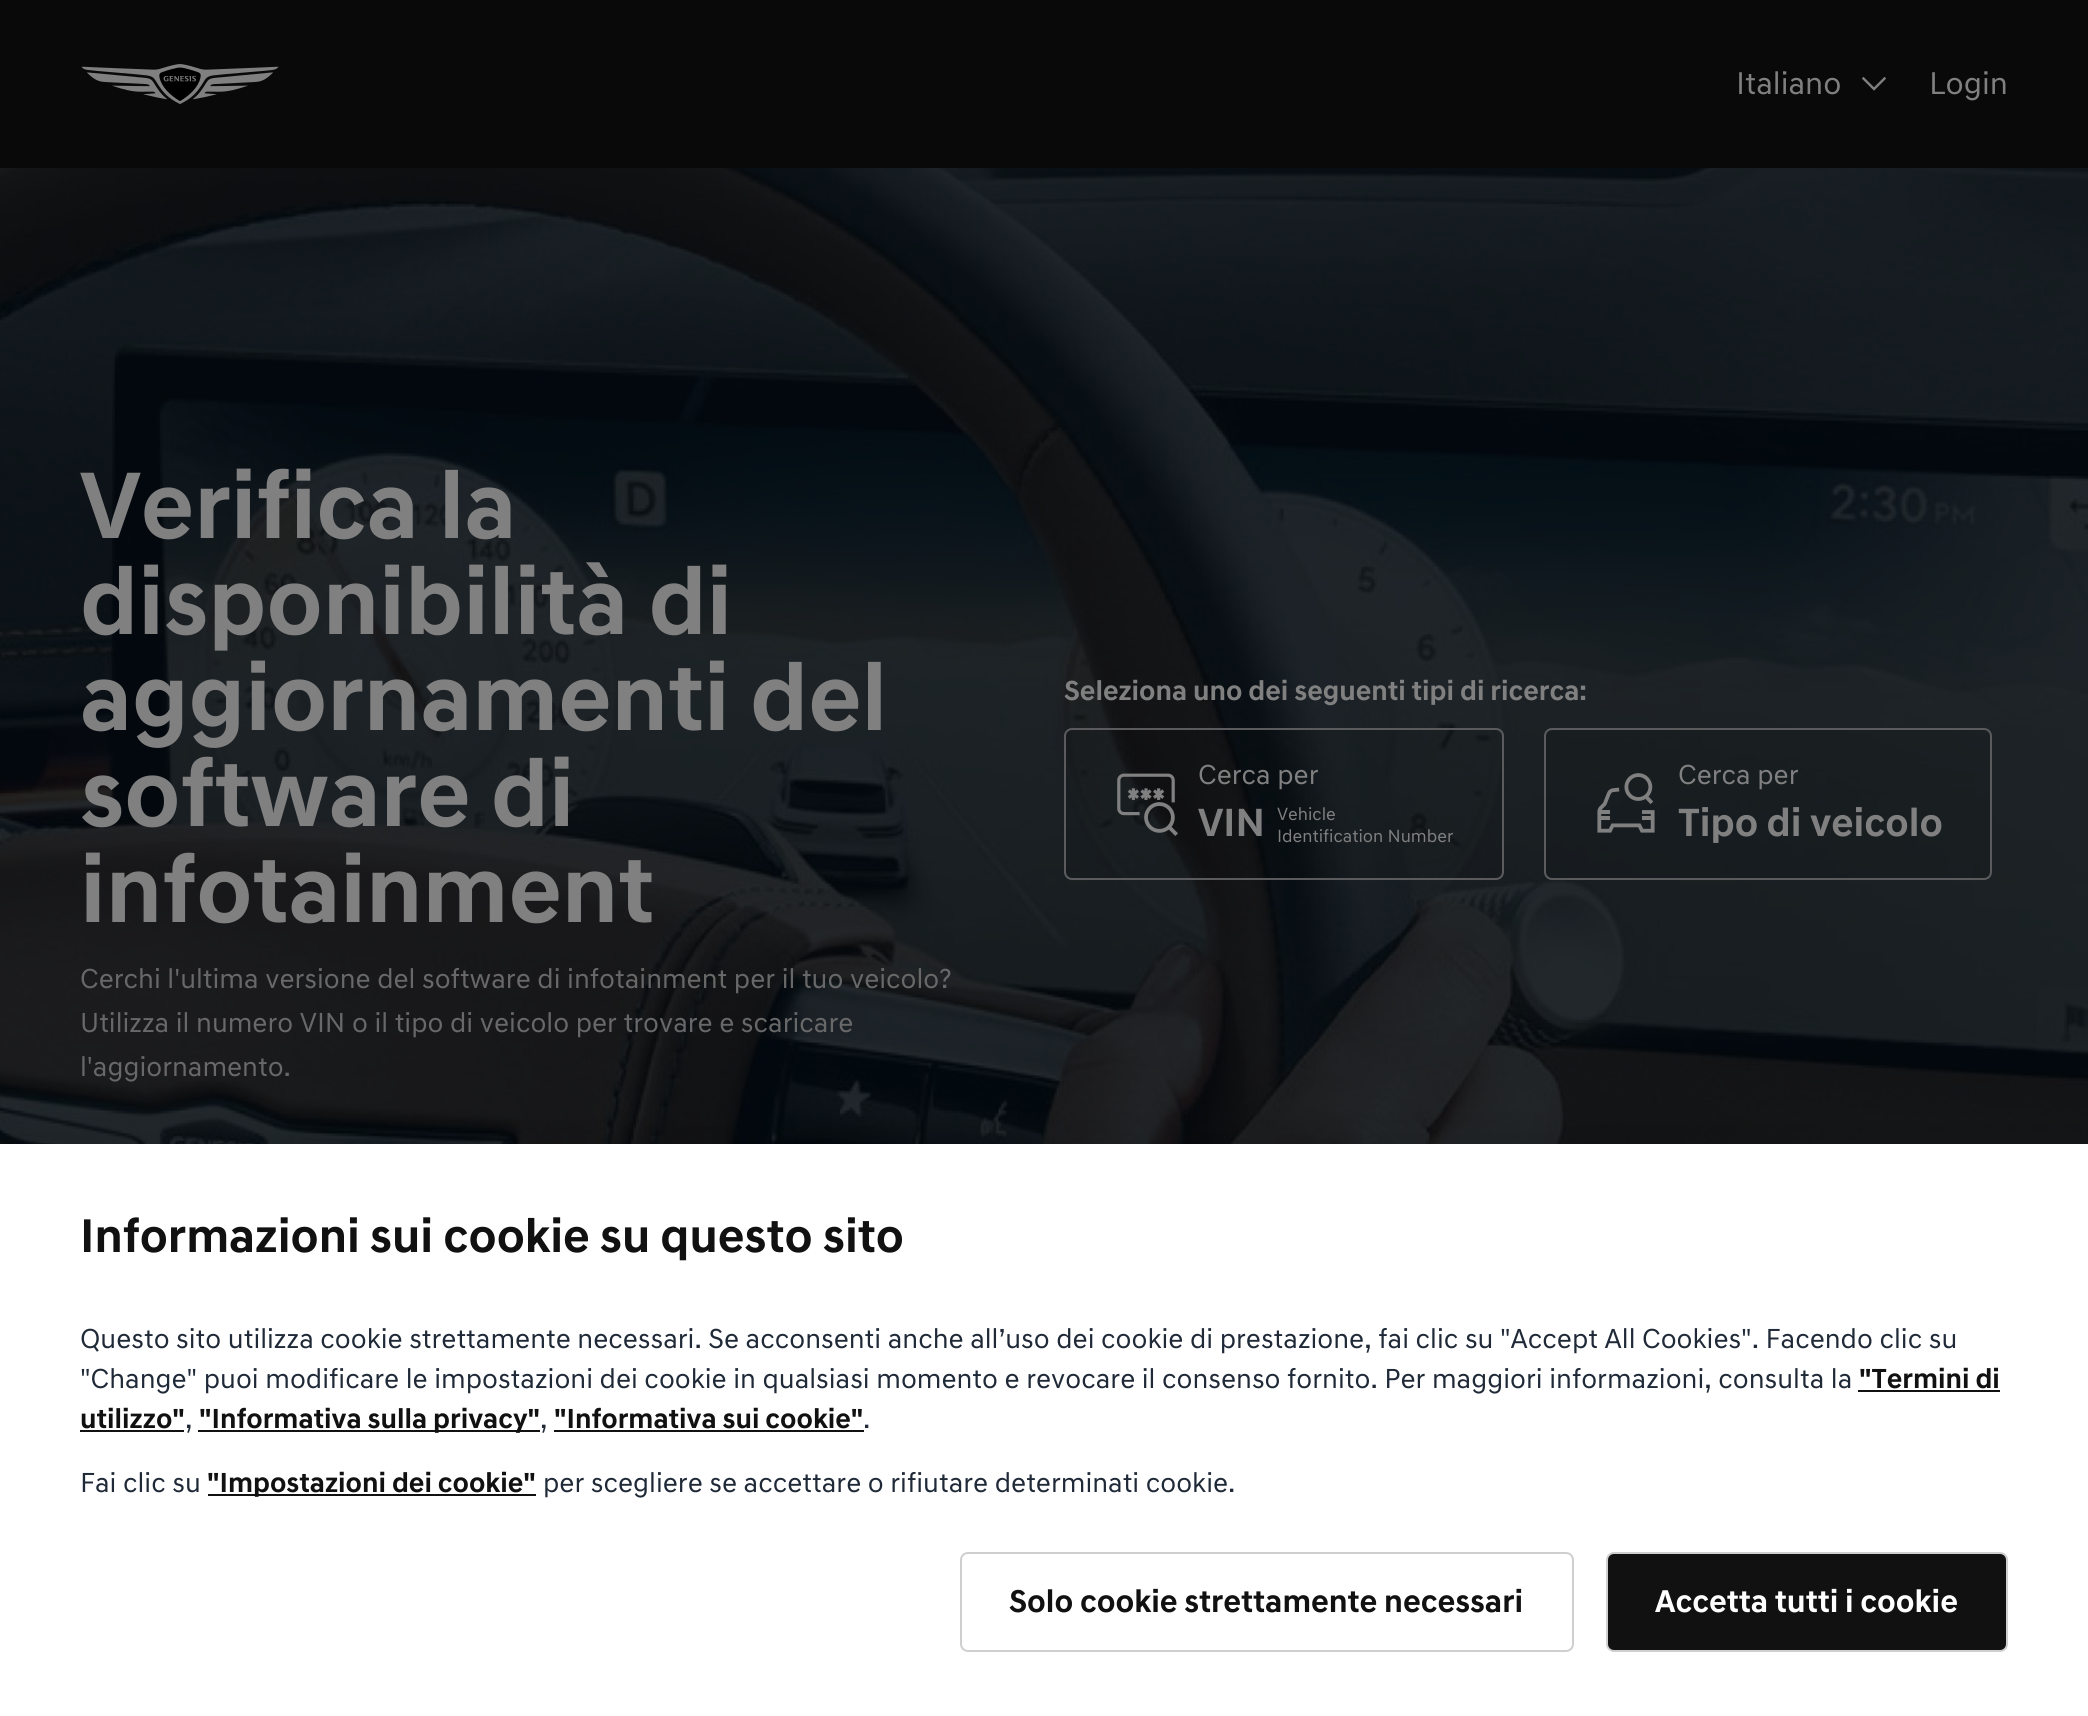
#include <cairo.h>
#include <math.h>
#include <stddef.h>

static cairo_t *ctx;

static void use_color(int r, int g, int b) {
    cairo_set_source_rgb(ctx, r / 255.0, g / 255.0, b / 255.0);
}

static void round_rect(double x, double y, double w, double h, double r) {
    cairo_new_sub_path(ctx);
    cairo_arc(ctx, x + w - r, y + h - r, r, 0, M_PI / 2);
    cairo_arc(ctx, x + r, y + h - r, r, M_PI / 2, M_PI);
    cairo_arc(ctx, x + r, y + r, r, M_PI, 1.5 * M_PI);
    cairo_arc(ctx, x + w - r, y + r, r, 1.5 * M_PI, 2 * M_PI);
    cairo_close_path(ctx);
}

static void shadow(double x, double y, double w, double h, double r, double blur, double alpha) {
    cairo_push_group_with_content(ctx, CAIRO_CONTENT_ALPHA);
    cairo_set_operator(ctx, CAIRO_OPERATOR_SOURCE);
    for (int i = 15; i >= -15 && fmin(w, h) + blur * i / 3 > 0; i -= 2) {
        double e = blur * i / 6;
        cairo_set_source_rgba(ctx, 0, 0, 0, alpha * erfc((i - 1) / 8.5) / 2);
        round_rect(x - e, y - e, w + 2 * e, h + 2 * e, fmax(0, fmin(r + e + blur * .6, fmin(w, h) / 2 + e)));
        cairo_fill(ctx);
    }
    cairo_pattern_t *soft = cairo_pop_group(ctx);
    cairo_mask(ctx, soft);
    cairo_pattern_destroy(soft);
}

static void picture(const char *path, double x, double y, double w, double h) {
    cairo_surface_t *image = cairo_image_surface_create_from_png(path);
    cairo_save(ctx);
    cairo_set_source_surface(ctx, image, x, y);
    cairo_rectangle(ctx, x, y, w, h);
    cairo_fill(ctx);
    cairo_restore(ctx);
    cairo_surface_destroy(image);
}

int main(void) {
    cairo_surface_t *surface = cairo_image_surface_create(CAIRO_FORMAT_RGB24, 2088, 1716);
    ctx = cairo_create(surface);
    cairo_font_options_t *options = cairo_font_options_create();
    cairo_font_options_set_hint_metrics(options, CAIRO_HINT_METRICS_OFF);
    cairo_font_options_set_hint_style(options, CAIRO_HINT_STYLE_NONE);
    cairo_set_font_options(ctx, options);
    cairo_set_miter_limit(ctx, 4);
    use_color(255, 255, 255);
    cairo_paint(ctx);
    use_color(9, 9, 9);
    cairo_rectangle(ctx, 0, 0, 2088, 168);
    cairo_fill(ctx);
    picture("img1.png", 81, 64, 198, 40);
    cairo_select_font_face(ctx, "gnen", CAIRO_FONT_SLANT_NORMAL, CAIRO_FONT_WEIGHT_NORMAL);
    cairo_set_font_size(ctx, 32);
    use_color(128, 128, 128);
    cairo_move_to(ctx, 1736, 94);
    cairo_show_text(ctx, "Italiano");
    cairo_new_path(ctx);
    cairo_move_to(ctx, 1863.5, 78.5);
    cairo_line_to(ctx, 1874, 89);
    cairo_line_to(ctx, 1884.5, 78.5);
    cairo_set_line_width(ctx, 2.4);
    cairo_set_line_cap(ctx, CAIRO_LINE_CAP_SQUARE);
    cairo_stroke(ctx);
    cairo_move_to(ctx, 1929, 94);
    cairo_show_text(ctx, "Login");
    picture("img2.png", 0, 168, 2088, 976);
    cairo_select_font_face(ctx, "gnen", CAIRO_FONT_SLANT_NORMAL, CAIRO_FONT_WEIGHT_BOLD);
    cairo_set_font_size(ctx, 96);
    cairo_move_to(ctx, 80, 538);
    cairo_show_text(ctx, "Verifica la");
    cairo_move_to(ctx, 80, 634);
    cairo_show_text(ctx, "disponibilità di");
    cairo_move_to(ctx, 80, 730);
    cairo_show_text(ctx, "aggiornamenti del");
    cairo_move_to(ctx, 80, 826);
    cairo_show_text(ctx, "software di");
    cairo_move_to(ctx, 80, 922);
    cairo_show_text(ctx, "infotainment");
    cairo_select_font_face(ctx, "gnen", CAIRO_FONT_SLANT_NORMAL, CAIRO_FONT_WEIGHT_NORMAL);
    cairo_set_font_size(ctx, 28);
    use_color(104, 104, 105);
    cairo_move_to(ctx, 80, 988);
    cairo_show_text(ctx, "Cerchi l'ultima versione del software di infotainment per il tuo veicolo?");
    cairo_move_to(ctx, 80, 1032);
    cairo_show_text(ctx, "Utilizza il numero VIN o il tipo di veicolo per trovare e scaricare");
    cairo_move_to(ctx, 80, 1076);
    cairo_show_text(ctx, "l'aggiornamento.");
    cairo_select_font_face(ctx, "gnen", CAIRO_FONT_SLANT_NORMAL, CAIRO_FONT_WEIGHT_BOLD);
    use_color(128, 128, 128);
    cairo_move_to(ctx, 1064, 700);
    cairo_show_text(ctx, "Seleziona uno dei seguenti tipi di ricerca:");
    cairo_set_source_rgba(ctx, 0, 0, 0, 0.1);
    round_rect(1065, 729, 438, 150, 7);
    cairo_fill_preserve(ctx);
    use_color(91, 91, 94);
    cairo_set_line_width(ctx, 2);
    cairo_set_line_cap(ctx, CAIRO_LINE_CAP_BUTT);
    cairo_stroke(ctx);
    picture("img3.png", 1117, 773, 61, 63);
    cairo_select_font_face(ctx, "gnen", CAIRO_FONT_SLANT_NORMAL, CAIRO_FONT_WEIGHT_NORMAL);
    use_color(128, 128, 128);
    cairo_move_to(ctx, 1198, 784);
    cairo_show_text(ctx, "Cerca per");
    cairo_select_font_face(ctx, "gnen", CAIRO_FONT_SLANT_NORMAL, CAIRO_FONT_WEIGHT_BOLD);
    cairo_set_font_size(ctx, 40);
    cairo_move_to(ctx, 1198, 836);
    cairo_show_text(ctx, "VIN");
    cairo_select_font_face(ctx, "gnen", CAIRO_FONT_SLANT_NORMAL, CAIRO_FONT_WEIGHT_NORMAL);
    cairo_set_font_size(ctx, 18);
    cairo_move_to(ctx, 1277, 820);
    cairo_show_text(ctx, "Vehicle");
    cairo_move_to(ctx, 1277, 842);
    cairo_show_text(ctx, "Identification Number");
    cairo_set_source_rgba(ctx, 0, 0, 0, 0.1);
    round_rect(1545, 729, 446, 150, 7);
    cairo_fill_preserve(ctx);
    use_color(91, 91, 94);
    cairo_stroke(ctx);
    picture("img4.png", 1597, 773, 58, 60);
    cairo_set_font_size(ctx, 28);
    use_color(128, 128, 128);
    cairo_move_to(ctx, 1678, 784);
    cairo_show_text(ctx, "Cerca per");
    cairo_select_font_face(ctx, "gnen", CAIRO_FONT_SLANT_NORMAL, CAIRO_FONT_WEIGHT_BOLD);
    cairo_set_font_size(ctx, 40);
    cairo_move_to(ctx, 1678, 836);
    cairo_show_text(ctx, "Tipo di veicolo");
    use_color(0, 0, 0);
    shadow(0, 1136, 2088, 572, 0, 20, 0.1);
    use_color(255, 255, 255);
    cairo_rectangle(ctx, 0, 1144, 2088, 572);
    cairo_fill(ctx);
    cairo_set_font_size(ctx, 48);
    use_color(17, 17, 17);
    cairo_move_to(ctx, 80, 1252);
    cairo_show_text(ctx, "Informazioni sui cookie su questo sito");
    cairo_select_font_face(ctx, "gnen", CAIRO_FONT_SLANT_NORMAL, CAIRO_FONT_WEIGHT_NORMAL);
    cairo_set_font_size(ctx, 28);
    use_color(31, 41, 55);
    cairo_move_to(ctx, 80, 1348);
    cairo_show_text(ctx, "Questo sito utilizza cookie strettamente necessari. Se acconsenti anche all’uso dei cookie di prestazione, fai clic su \"Accept All Cookies\". Facendo clic su");
    cairo_move_to(ctx, 80, 1388);
    cairo_show_text(ctx, "\"Change\" puoi modificare le impostazioni dei cookie in qualsiasi momento e revocare il consenso fornito. Per maggiori informazioni, consulta la");
    cairo_select_font_face(ctx, "gnen", CAIRO_FONT_SLANT_NORMAL, CAIRO_FONT_WEIGHT_BOLD);
    use_color(17, 17, 17);
    cairo_move_to(ctx, 1859, 1388);
    cairo_show_text(ctx, "\"Termini di");
    cairo_rectangle(ctx, 1858, 1390, 142, 2);
    cairo_fill(ctx);
    cairo_move_to(ctx, 80, 1428);
    cairo_show_text(ctx, "utilizzo\"");
    cairo_rectangle(ctx, 80, 1430, 104, 2);
    cairo_fill(ctx);
    cairo_select_font_face(ctx, "gnen", CAIRO_FONT_SLANT_NORMAL, CAIRO_FONT_WEIGHT_NORMAL);
    use_color(31, 41, 55);
    cairo_move_to(ctx, 185, 1428);
    cairo_show_text(ctx, ",");
    use_color(17, 17, 17);
    cairo_rectangle(ctx, 198, 1430, 342, 2);
    cairo_fill(ctx);
    cairo_select_font_face(ctx, "gnen", CAIRO_FONT_SLANT_NORMAL, CAIRO_FONT_WEIGHT_BOLD);
    cairo_move_to(ctx, 199, 1428);
    cairo_show_text(ctx, "\"Informativa sulla privacy\"");
    cairo_select_font_face(ctx, "gnen", CAIRO_FONT_SLANT_NORMAL, CAIRO_FONT_WEIGHT_NORMAL);
    use_color(31, 41, 55);
    cairo_move_to(ctx, 540, 1428);
    cairo_show_text(ctx, ",");
    cairo_select_font_face(ctx, "gnen", CAIRO_FONT_SLANT_NORMAL, CAIRO_FONT_WEIGHT_BOLD);
    use_color(17, 17, 17);
    cairo_move_to(ctx, 554, 1428);
    cairo_show_text(ctx, "\"Informativa sui cookie\"");
    cairo_rectangle(ctx, 554, 1430, 310, 2);
    cairo_fill(ctx);
    cairo_select_font_face(ctx, "gnen", CAIRO_FONT_SLANT_NORMAL, CAIRO_FONT_WEIGHT_NORMAL);
    use_color(31, 41, 55);
    cairo_move_to(ctx, 863, 1428);
    cairo_show_text(ctx, ".");
    cairo_move_to(ctx, 80, 1492);
    cairo_show_text(ctx, "Fai clic su");
    use_color(17, 17, 17);
    cairo_rectangle(ctx, 208, 1494, 328, 2);
    cairo_fill(ctx);
    cairo_select_font_face(ctx, "gnen", CAIRO_FONT_SLANT_NORMAL, CAIRO_FONT_WEIGHT_BOLD);
    cairo_move_to(ctx, 207, 1492);
    cairo_show_text(ctx, "\"Impostazioni dei cookie\"");
    cairo_select_font_face(ctx, "gnen", CAIRO_FONT_SLANT_NORMAL, CAIRO_FONT_WEIGHT_NORMAL);
    use_color(31, 41, 55);
    cairo_move_to(ctx, 543, 1492);
    cairo_show_text(ctx, "per scegliere se accettare o rifiutare determinati cookie.");
    round_rect(961, 1553, 612, 98, 7);
    use_color(207, 207, 210);
    cairo_stroke(ctx);
    cairo_select_font_face(ctx, "gnen", CAIRO_FONT_SLANT_NORMAL, CAIRO_FONT_WEIGHT_BOLD);
    cairo_set_font_size(ctx, 32);
    use_color(17, 17, 17);
    cairo_move_to(ctx, 1009, 1612);
    cairo_show_text(ctx, "Solo cookie strettamente necessari");
    round_rect(1607, 1553, 400, 98, 7);
    cairo_fill_preserve(ctx);
    use_color(207, 207, 210);
    cairo_stroke(ctx);
    use_color(255, 255, 255);
    cairo_move_to(ctx, 1655, 1612);
    cairo_show_text(ctx, "Accetta tutti i cookie");
    cairo_surface_write_to_png(surface, "result.png");
    cairo_font_options_destroy(options);
    cairo_destroy(ctx);
    cairo_surface_destroy(surface);
    return 0;
}
